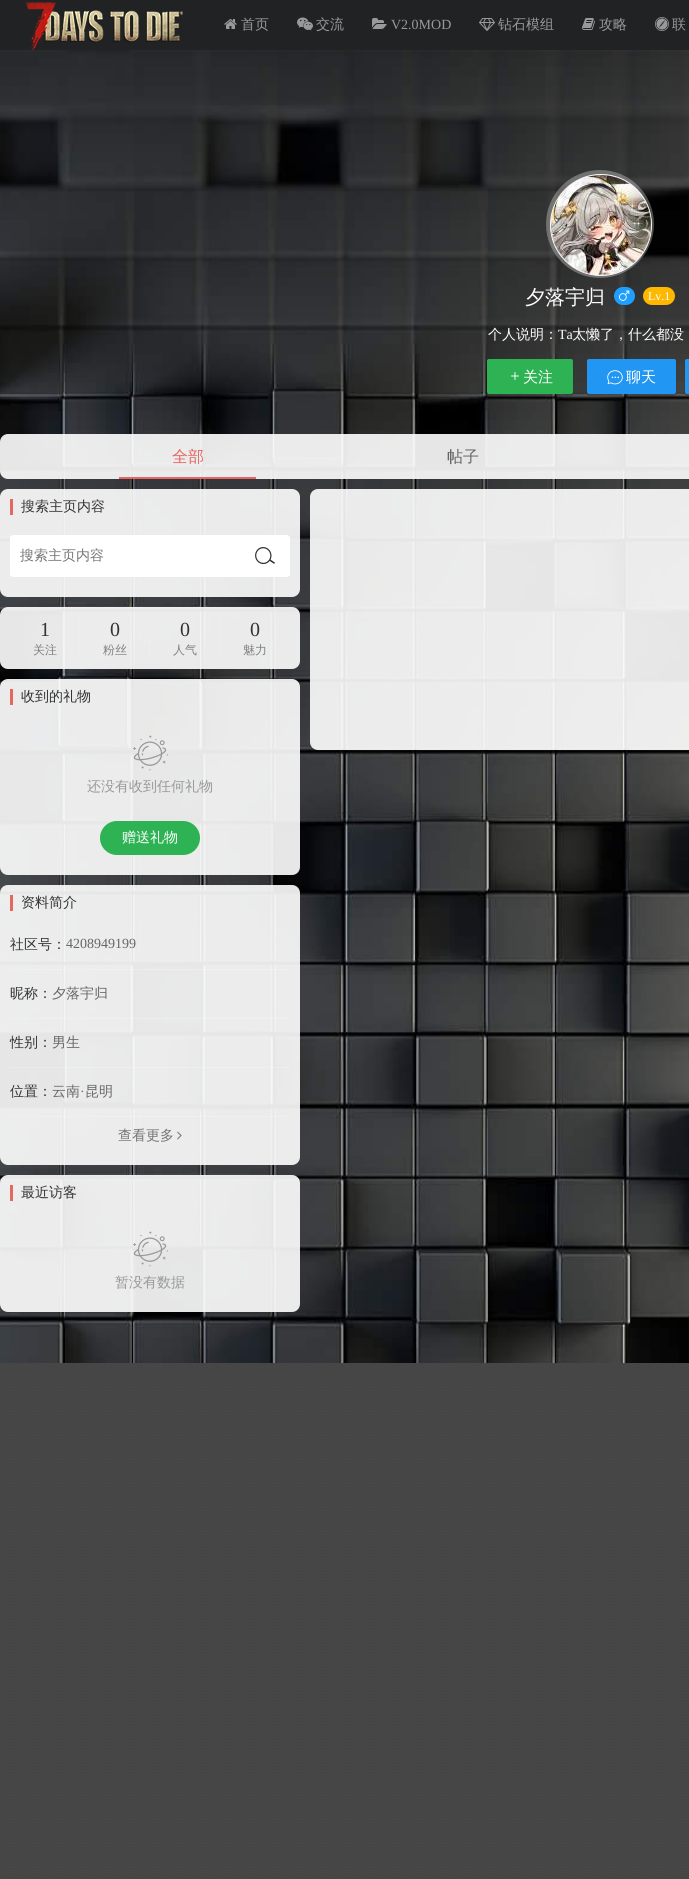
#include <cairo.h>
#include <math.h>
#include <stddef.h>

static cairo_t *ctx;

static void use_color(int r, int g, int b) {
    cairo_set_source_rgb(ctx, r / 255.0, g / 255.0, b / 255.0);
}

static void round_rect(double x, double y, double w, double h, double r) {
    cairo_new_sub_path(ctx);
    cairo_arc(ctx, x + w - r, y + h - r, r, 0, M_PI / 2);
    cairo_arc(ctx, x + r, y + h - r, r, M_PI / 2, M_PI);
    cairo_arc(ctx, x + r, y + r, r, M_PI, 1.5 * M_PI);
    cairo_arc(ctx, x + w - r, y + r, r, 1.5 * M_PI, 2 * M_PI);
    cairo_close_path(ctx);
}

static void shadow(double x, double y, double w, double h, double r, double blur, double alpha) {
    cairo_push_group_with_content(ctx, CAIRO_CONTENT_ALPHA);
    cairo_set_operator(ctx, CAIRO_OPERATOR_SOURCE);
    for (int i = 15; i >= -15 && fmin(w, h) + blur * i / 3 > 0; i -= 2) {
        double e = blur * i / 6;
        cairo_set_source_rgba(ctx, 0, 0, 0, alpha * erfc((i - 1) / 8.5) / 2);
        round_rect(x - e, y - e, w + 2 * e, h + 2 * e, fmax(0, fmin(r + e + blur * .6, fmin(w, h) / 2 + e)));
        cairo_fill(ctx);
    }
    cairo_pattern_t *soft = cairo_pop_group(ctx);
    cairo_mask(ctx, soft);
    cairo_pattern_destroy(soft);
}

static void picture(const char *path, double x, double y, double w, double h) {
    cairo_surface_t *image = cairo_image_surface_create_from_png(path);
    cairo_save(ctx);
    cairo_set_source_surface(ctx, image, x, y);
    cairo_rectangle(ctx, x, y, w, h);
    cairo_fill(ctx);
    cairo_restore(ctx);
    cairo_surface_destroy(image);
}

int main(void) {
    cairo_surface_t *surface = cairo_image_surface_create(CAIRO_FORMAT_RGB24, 689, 1879);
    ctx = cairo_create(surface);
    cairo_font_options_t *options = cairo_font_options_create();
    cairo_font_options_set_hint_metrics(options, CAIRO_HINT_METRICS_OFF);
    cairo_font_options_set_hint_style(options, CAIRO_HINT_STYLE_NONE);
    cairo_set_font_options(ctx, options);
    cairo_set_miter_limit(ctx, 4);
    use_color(255, 255, 255);
    cairo_paint(ctx);
    picture("img1.png", 0, 1363, 689, 516);
    use_color(32, 34, 35);
    cairo_rectangle(ctx, 0, 0, 689, 50);
    cairo_fill(ctx);
    picture("img2.png", 25, 2, 158, 48);
    picture("img3.png", 224, 19, 13, 10);
    cairo_select_font_face(ctx, "WenQuanYi Zen Hei Medium", CAIRO_FONT_SLANT_NORMAL, CAIRO_FONT_WEIGHT_NORMAL);
    cairo_set_font_size(ctx, 14);
    use_color(153, 153, 153);
    cairo_move_to(ctx, 241, 29);
    cairo_show_text(ctx, "首页");
    picture("img4.png", 297, 17, 16, 14);
    cairo_move_to(ctx, 316, 29);
    cairo_show_text(ctx, "交流");
    picture("img5.png", 372, 18, 15, 11);
    cairo_select_font_face(ctx, "Liberation Serif", CAIRO_FONT_SLANT_NORMAL, CAIRO_FONT_WEIGHT_NORMAL);
    cairo_move_to(ctx, 391, 29);
    cairo_show_text(ctx, "V2.0MOD");
    picture("img6.png", 479, 18, 16, 13);
    cairo_select_font_face(ctx, "WenQuanYi Zen Hei Medium", CAIRO_FONT_SLANT_NORMAL, CAIRO_FONT_WEIGHT_NORMAL);
    cairo_move_to(ctx, 498, 29);
    cairo_show_text(ctx, "钻石模组");
    picture("img7.png", 582, 18, 13, 12);
    cairo_move_to(ctx, 599, 29);
    cairo_show_text(ctx, "攻略");
    picture("img8.png", 655, 17, 14, 14);
    cairo_move_to(ctx, 672, 29);
    cairo_show_text(ctx, "联");
    picture("img9.png", 0, 50, 689, 1313);
    cairo_set_source_rgba(ctx, 1, 1, 1, 0.3);
    cairo_arc(ctx, 600, 224, 54, 0, 2 * M_PI);
    cairo_fill(ctx);
    use_color(247, 247, 247);
    cairo_arc(ctx, 601, 225, 50.5, 0, 2 * M_PI);
    cairo_fill_preserve(ctx);
    cairo_set_line_width(ctx, 1);
    cairo_stroke(ctx);
    picture("img10.png", 551, 175, 100, 100);
    cairo_set_font_size(ctx, 20);
    use_color(255, 255, 255);
    cairo_move_to(ctx, 525, 304);
    cairo_show_text(ctx, "夕落宇归");
    use_color(30, 159, 255);
    round_rect(614, 287, 21, 18, 9);
    cairo_fill(ctx);
    picture("img11.png", 619, 290, 11, 11);
    use_color(255, 184, 0);
    round_rect(643, 287, 32, 18, 9);
    cairo_fill(ctx);
    cairo_select_font_face(ctx, "Liberation Serif", CAIRO_FONT_SLANT_NORMAL, CAIRO_FONT_WEIGHT_NORMAL);
    cairo_set_font_size(ctx, 12);
    use_color(255, 255, 255);
    cairo_move_to(ctx, 648, 300);
    cairo_show_text(ctx, "Lv.1");
    cairo_select_font_face(ctx, "WenQuanYi Zen Hei Medium", CAIRO_FONT_SLANT_NORMAL, CAIRO_FONT_WEIGHT_NORMAL);
    cairo_set_font_size(ctx, 14);
    cairo_move_to(ctx, 488, 339);
    cairo_show_text(ctx, "个人说明：");
    cairo_select_font_face(ctx, "Liberation Serif", CAIRO_FONT_SLANT_NORMAL, CAIRO_FONT_WEIGHT_NORMAL);
    cairo_move_to(ctx, 558, 339);
    cairo_show_text(ctx, "Ta");
    cairo_select_font_face(ctx, "WenQuanYi Zen Hei Medium", CAIRO_FONT_SLANT_NORMAL, CAIRO_FONT_WEIGHT_NORMAL);
    cairo_move_to(ctx, 572, 339);
    cairo_show_text(ctx, "太懒了，什么都没");
    use_color(0, 0, 0);
    shadow(487, 361, 86, 35, 2, 0.5, 0.2);
    use_color(46, 179, 84);
    round_rect(487, 359, 86, 35, 2);
    cairo_fill(ctx);
    picture("img12.png", 511, 372, 8, 8);
    cairo_set_font_size(ctx, 15);
    use_color(255, 255, 255);
    cairo_move_to(ctx, 523, 382);
    cairo_show_text(ctx, "关注");
    use_color(0, 0, 0);
    shadow(587, 361, 89, 35, 2, 0.5, 0.2);
    use_color(33, 150, 243);
    round_rect(587, 359, 89, 35, 2);
    cairo_fill(ctx);
    picture("img13.png", 607, 370, 16, 15);
    use_color(255, 255, 255);
    cairo_move_to(ctx, 626, 382);
    cairo_show_text(ctx, "聊天");
    use_color(0, 0, 0);
    shadow(685, 361, 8, 35, 2, 0.5, 0.2);
    use_color(33, 150, 243);
    round_rect(685, 359, 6, 35, 2);
    cairo_fill(ctx);
    cairo_set_source_rgba(ctx, 1, 1, 1, 0.9);
    round_rect(0, 434, 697, 45, 8);
    cairo_fill(ctx);
    cairo_set_font_size(ctx, 16);
    use_color(230, 103, 96);
    cairo_move_to(ctx, 172, 462);
    cairo_show_text(ctx, "全部");
    cairo_rectangle(ctx, 119, 477, 137, 2);
    cairo_fill(ctx);
    use_color(102, 102, 102);
    cairo_move_to(ctx, 447, 462);
    cairo_show_text(ctx, "帖子");
    cairo_set_source_rgba(ctx, 1, 1, 1, 0.9);
    round_rect(0, 489, 300, 108, 8);
    cairo_fill(ctx);
    use_color(230, 103, 96);
    cairo_rectangle(ctx, 10, 499, 3, 16);
    cairo_fill(ctx);
    cairo_set_font_size(ctx, 14);
    use_color(51, 51, 51);
    cairo_move_to(ctx, 21, 511);
    cairo_show_text(ctx, "搜索主页内容");
    use_color(255, 255, 255);
    cairo_new_path(ctx);
    cairo_move_to(ctx, 13, 535);
    cairo_line_to(ctx, 240, 535);
    cairo_line_to(ctx, 240, 577);
    cairo_line_to(ctx, 13, 577);
    cairo_curve_to(ctx, 11.5, 577, 10, 575.5, 10, 574);
    cairo_line_to(ctx, 10, 538);
    cairo_curve_to(ctx, 10, 536.5, 11.5, 535, 13, 535);
    cairo_close_path(ctx);
    cairo_fill(ctx);
    use_color(117, 117, 117);
    cairo_move_to(ctx, 20, 560);
    cairo_show_text(ctx, "搜索主页内容");
    use_color(255, 255, 255);
    cairo_new_path(ctx);
    cairo_move_to(ctx, 240, 535);
    cairo_line_to(ctx, 287, 535);
    cairo_curve_to(ctx, 288.5, 535, 290, 536.5, 290, 538);
    cairo_line_to(ctx, 290, 574);
    cairo_curve_to(ctx, 290, 575.5, 288.5, 577, 287, 577);
    cairo_line_to(ctx, 240, 577);
    cairo_close_path(ctx);
    cairo_fill(ctx);
    picture("img14.png", 255, 547, 20, 18);
    cairo_set_source_rgba(ctx, 1, 1, 1, 0.9);
    round_rect(0, 607, 300, 62, 8);
    cairo_fill(ctx);
    use_color(238, 238, 239);
    cairo_rectangle(ctx, 79, 617, 1, 42);
    cairo_fill(ctx);
    cairo_select_font_face(ctx, "Liberation Serif", CAIRO_FONT_SLANT_NORMAL, CAIRO_FONT_WEIGHT_NORMAL);
    cairo_set_font_size(ctx, 20);
    use_color(51, 51, 51);
    cairo_move_to(ctx, 40, 636);
    cairo_show_text(ctx, "1");
    cairo_select_font_face(ctx, "WenQuanYi Zen Hei Medium", CAIRO_FONT_SLANT_NORMAL, CAIRO_FONT_WEIGHT_NORMAL);
    cairo_set_font_size(ctx, 12);
    use_color(128, 128, 128);
    cairo_move_to(ctx, 33, 654);
    cairo_show_text(ctx, "关注");
    use_color(238, 238, 238);
    cairo_rectangle(ctx, 149, 617, 1, 42);
    cairo_fill(ctx);
    cairo_select_font_face(ctx, "Liberation Serif", CAIRO_FONT_SLANT_NORMAL, CAIRO_FONT_WEIGHT_NORMAL);
    cairo_set_font_size(ctx, 20);
    use_color(51, 51, 51);
    cairo_move_to(ctx, 110, 636);
    cairo_show_text(ctx, "0");
    cairo_select_font_face(ctx, "WenQuanYi Zen Hei Medium", CAIRO_FONT_SLANT_NORMAL, CAIRO_FONT_WEIGHT_NORMAL);
    cairo_set_font_size(ctx, 12);
    use_color(128, 128, 128);
    cairo_move_to(ctx, 103, 654);
    cairo_show_text(ctx, "粉丝");
    use_color(238, 238, 238);
    cairo_rectangle(ctx, 219, 617, 1, 42);
    cairo_fill(ctx);
    cairo_select_font_face(ctx, "Liberation Serif", CAIRO_FONT_SLANT_NORMAL, CAIRO_FONT_WEIGHT_NORMAL);
    cairo_set_font_size(ctx, 20);
    use_color(51, 51, 51);
    cairo_move_to(ctx, 180, 636);
    cairo_show_text(ctx, "0");
    cairo_select_font_face(ctx, "WenQuanYi Zen Hei Medium", CAIRO_FONT_SLANT_NORMAL, CAIRO_FONT_WEIGHT_NORMAL);
    cairo_set_font_size(ctx, 12);
    use_color(128, 128, 128);
    cairo_move_to(ctx, 173, 654);
    cairo_show_text(ctx, "人气");
    cairo_select_font_face(ctx, "Liberation Serif", CAIRO_FONT_SLANT_NORMAL, CAIRO_FONT_WEIGHT_NORMAL);
    cairo_set_font_size(ctx, 20);
    use_color(51, 51, 51);
    cairo_move_to(ctx, 250, 636);
    cairo_show_text(ctx, "0");
    cairo_select_font_face(ctx, "WenQuanYi Zen Hei Medium", CAIRO_FONT_SLANT_NORMAL, CAIRO_FONT_WEIGHT_NORMAL);
    cairo_set_font_size(ctx, 12);
    use_color(128, 128, 128);
    cairo_move_to(ctx, 243, 654);
    cairo_show_text(ctx, "魅力");
    cairo_set_source_rgba(ctx, 1, 1, 1, 0.9);
    round_rect(0, 679, 300, 196, 8);
    cairo_fill(ctx);
    use_color(230, 103, 96);
    cairo_rectangle(ctx, 10, 689, 3, 16);
    cairo_fill(ctx);
    cairo_set_font_size(ctx, 14);
    use_color(51, 51, 51);
    cairo_move_to(ctx, 21, 701);
    cairo_show_text(ctx, "收到的礼物");
    picture("img15.png", 133, 735, 35, 36);
    use_color(153, 153, 153);
    cairo_move_to(ctx, 87, 791);
    cairo_show_text(ctx, "还没有收到任何礼物");
    use_color(46, 179, 84);
    round_rect(100, 821, 100, 34, 17);
    cairo_fill(ctx);
    use_color(255, 255, 255);
    cairo_move_to(ctx, 122, 842);
    cairo_show_text(ctx, "赠送礼物");
    cairo_set_source_rgba(ctx, 1, 1, 1, 0.9);
    round_rect(0, 885, 300, 280, 8);
    cairo_fill(ctx);
    use_color(230, 103, 96);
    cairo_rectangle(ctx, 10, 895, 3, 16);
    cairo_fill(ctx);
    use_color(51, 51, 51);
    cairo_move_to(ctx, 21, 907);
    cairo_show_text(ctx, "资料简介");
    cairo_set_source_rgba(ctx, 0.965, 0.965, 0.965, 0.3);
    cairo_rectangle(ctx, 10, 969, 280, 1);
    cairo_fill(ctx);
    use_color(51, 51, 51);
    cairo_move_to(ctx, 10, 949);
    cairo_show_text(ctx, "社区号：");
    cairo_select_font_face(ctx, "Liberation Serif", CAIRO_FONT_SLANT_NORMAL, CAIRO_FONT_WEIGHT_NORMAL);
    use_color(102, 102, 102);
    cairo_move_to(ctx, 66, 948);
    cairo_show_text(ctx, "4208949199");
    cairo_set_source_rgba(ctx, 0.965, 0.965, 0.965, 0.3);
    cairo_rectangle(ctx, 10, 1018, 280, 1);
    cairo_fill(ctx);
    cairo_select_font_face(ctx, "WenQuanYi Zen Hei Medium", CAIRO_FONT_SLANT_NORMAL, CAIRO_FONT_WEIGHT_NORMAL);
    use_color(51, 51, 51);
    cairo_move_to(ctx, 10, 998);
    cairo_show_text(ctx, "昵称：");
    use_color(102, 102, 102);
    cairo_move_to(ctx, 52, 998);
    cairo_show_text(ctx, "夕落宇归");
    cairo_set_source_rgba(ctx, 0.965, 0.965, 0.965, 0.3);
    cairo_rectangle(ctx, 10, 1067, 280, 1);
    cairo_fill(ctx);
    use_color(51, 51, 51);
    cairo_move_to(ctx, 10, 1047);
    cairo_show_text(ctx, "性别：");
    use_color(102, 102, 102);
    cairo_move_to(ctx, 52, 1047);
    cairo_show_text(ctx, "男生");
    cairo_set_source_rgba(ctx, 0.965, 0.965, 0.965, 0.3);
    cairo_rectangle(ctx, 10, 1116, 280, 1);
    cairo_fill(ctx);
    use_color(51, 51, 51);
    cairo_move_to(ctx, 10, 1096);
    cairo_show_text(ctx, "位置：");
    use_color(102, 102, 102);
    cairo_move_to(ctx, 52, 1096);
    cairo_show_text(ctx, "云南");
    cairo_select_font_face(ctx, "Liberation Serif", CAIRO_FONT_SLANT_NORMAL, CAIRO_FONT_WEIGHT_NORMAL);
    cairo_move_to(ctx, 80, 1096);
    cairo_show_text(ctx, "·");
    cairo_select_font_face(ctx, "WenQuanYi Zen Hei Medium", CAIRO_FONT_SLANT_NORMAL, CAIRO_FONT_WEIGHT_NORMAL);
    cairo_move_to(ctx, 85, 1096);
    cairo_show_text(ctx, "昆明");
    use_color(117, 117, 117);
    cairo_move_to(ctx, 118, 1140);
    cairo_show_text(ctx, "查看更多");
    picture("img16.png", 177, 1131, 5, 9);
    cairo_set_source_rgba(ctx, 1, 1, 1, 0.9);
    round_rect(0, 1175, 300, 137, 8);
    cairo_fill(ctx);
    use_color(230, 103, 96);
    cairo_rectangle(ctx, 10, 1185, 3, 16);
    cairo_fill(ctx);
    use_color(51, 51, 51);
    cairo_move_to(ctx, 21, 1197);
    cairo_show_text(ctx, "最近访客");
    picture("img17.png", 133, 1231, 35, 36);
    use_color(153, 153, 153);
    cairo_move_to(ctx, 115, 1287);
    cairo_show_text(ctx, "暂没有数据");
    cairo_set_source_rgba(ctx, 1, 1, 1, 0.9);
    round_rect(310, 489, 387, 261, 8);
    cairo_fill(ctx);
    cairo_surface_write_to_png(surface, "result.png");
    cairo_font_options_destroy(options);
    cairo_destroy(ctx);
    cairo_surface_destroy(surface);
    return 0;
}
